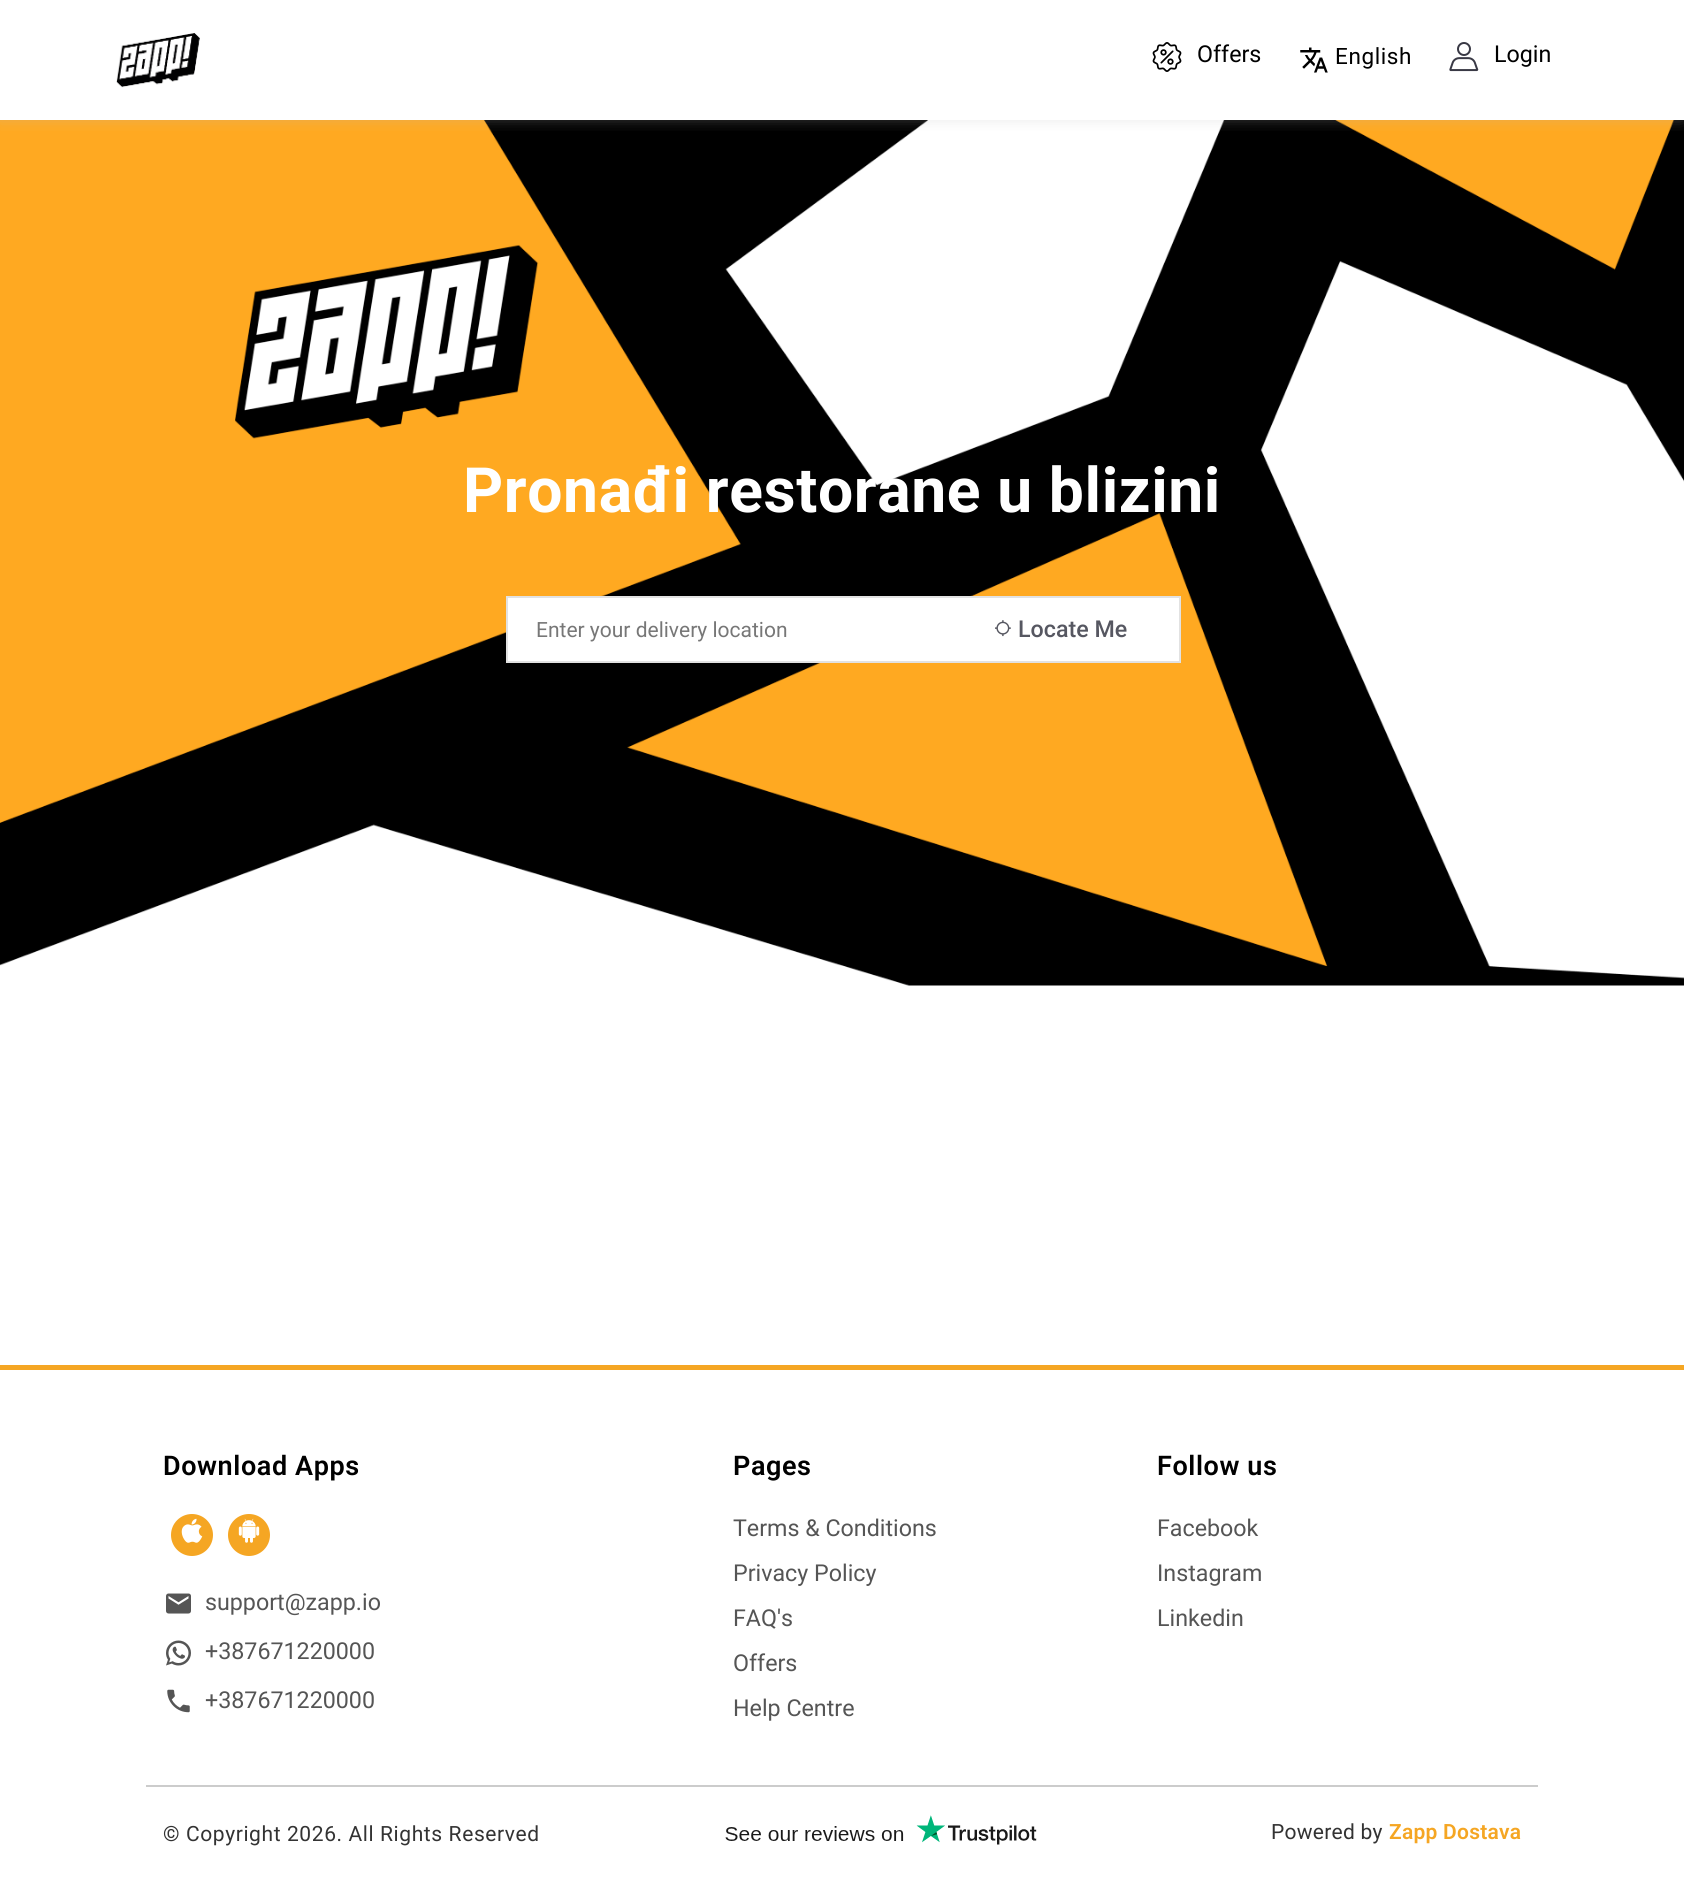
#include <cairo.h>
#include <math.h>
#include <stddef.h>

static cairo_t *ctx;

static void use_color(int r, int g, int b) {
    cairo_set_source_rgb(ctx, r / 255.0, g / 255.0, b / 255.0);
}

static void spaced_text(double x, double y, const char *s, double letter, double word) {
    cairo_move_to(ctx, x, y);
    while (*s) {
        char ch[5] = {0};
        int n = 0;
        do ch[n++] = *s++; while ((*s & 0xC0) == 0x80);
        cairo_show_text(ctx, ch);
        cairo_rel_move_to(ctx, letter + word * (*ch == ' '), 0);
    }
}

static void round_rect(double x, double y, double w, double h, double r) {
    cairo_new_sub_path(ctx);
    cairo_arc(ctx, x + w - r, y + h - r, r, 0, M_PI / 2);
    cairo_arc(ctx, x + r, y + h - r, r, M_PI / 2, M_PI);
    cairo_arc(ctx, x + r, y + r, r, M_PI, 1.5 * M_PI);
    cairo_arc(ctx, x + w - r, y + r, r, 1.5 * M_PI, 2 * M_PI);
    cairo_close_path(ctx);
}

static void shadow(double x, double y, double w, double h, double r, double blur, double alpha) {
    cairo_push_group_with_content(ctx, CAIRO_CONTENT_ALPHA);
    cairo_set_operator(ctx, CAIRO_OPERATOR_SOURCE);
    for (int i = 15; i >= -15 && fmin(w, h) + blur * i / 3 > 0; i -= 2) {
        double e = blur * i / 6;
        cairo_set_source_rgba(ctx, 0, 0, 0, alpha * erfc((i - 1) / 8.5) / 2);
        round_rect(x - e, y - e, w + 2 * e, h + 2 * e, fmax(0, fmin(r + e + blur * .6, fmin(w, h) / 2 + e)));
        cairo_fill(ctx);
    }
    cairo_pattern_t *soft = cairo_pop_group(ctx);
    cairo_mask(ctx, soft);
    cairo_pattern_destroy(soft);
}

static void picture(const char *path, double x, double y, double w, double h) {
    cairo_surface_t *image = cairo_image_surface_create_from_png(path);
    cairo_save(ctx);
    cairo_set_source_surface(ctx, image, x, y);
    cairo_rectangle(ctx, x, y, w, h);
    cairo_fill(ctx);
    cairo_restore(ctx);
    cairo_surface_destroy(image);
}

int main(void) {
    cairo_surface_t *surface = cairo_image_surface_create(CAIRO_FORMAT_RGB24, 1684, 1886);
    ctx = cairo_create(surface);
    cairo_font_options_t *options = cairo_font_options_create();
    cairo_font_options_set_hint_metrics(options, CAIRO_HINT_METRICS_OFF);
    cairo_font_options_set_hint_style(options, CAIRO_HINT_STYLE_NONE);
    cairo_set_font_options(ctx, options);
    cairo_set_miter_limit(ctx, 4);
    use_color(255, 255, 255);
    cairo_paint(ctx);
    picture("img5.png", 0, 120, 1684, 866);
    cairo_save(ctx);
    cairo_rectangle(ctx, 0, 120, 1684, 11);
    cairo_clip(ctx);
    use_color(187, 187, 187);
    shadow(-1, -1, 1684, 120, 0, 7.5, 0.36);
    cairo_restore(ctx);
    picture("img1.png", 116, 33, 84, 55);
    picture("img2.png", 1152, 42, 30, 30);
    cairo_select_font_face(ctx, "Roboto", CAIRO_FONT_SLANT_NORMAL, CAIRO_FONT_WEIGHT_NORMAL);
    cairo_set_font_size(ctx, 23.25);
    use_color(0, 0, 0);
    cairo_move_to(ctx, 1197, 62);
    cairo_show_text(ctx, "Offers");
    picture("img3.png", 1300, 47, 28, 26);
    cairo_set_font_size(ctx, 22.5);
    spaced_text(1335, 64, "English", 0.6, 0);
    picture("img4.png", 1449, 42, 30, 30);
    cairo_set_font_size(ctx, 23.25);
    cairo_move_to(ctx, 1494, 62);
    cairo_show_text(ctx, "Login");
    cairo_select_font_face(ctx, "Roboto", CAIRO_FONT_SLANT_NORMAL, CAIRO_FONT_WEIGHT_BOLD);
    cairo_set_font_size(ctx, 62.4);
    use_color(255, 255, 255);
    spaced_text(463, 512, "Pronađi restorane u blizini", 0.6, 0);
    cairo_rectangle(ctx, 507, 597, 673, 65);
    cairo_fill_preserve(ctx);
    use_color(226, 226, 226);
    cairo_stroke(ctx);
    cairo_select_font_face(ctx, "Roboto", CAIRO_FONT_SLANT_NORMAL, CAIRO_FONT_WEIGHT_NORMAL);
    cairo_set_font_size(ctx, 21);
    use_color(119, 119, 119);
    cairo_move_to(ctx, 536, 637);
    cairo_show_text(ctx, "Enter your delivery location");
    picture("img6.png", 995, 620, 16, 17);
    cairo_select_font_face(ctx, "Roboto Medium", CAIRO_FONT_SLANT_NORMAL, CAIRO_FONT_WEIGHT_NORMAL);
    cairo_set_font_size(ctx, 23.25);
    use_color(86, 87, 97);
    cairo_move_to(ctx, 1018, 637);
    cairo_show_text(ctx, "Locate Me");
    use_color(245, 166, 35);
    cairo_rectangle(ctx, 0, 1365, 1684, 5);
    cairo_fill(ctx);
    cairo_select_font_face(ctx, "Roboto SemiBold", CAIRO_FONT_SLANT_NORMAL, CAIRO_FONT_WEIGHT_NORMAL);
    cairo_set_font_size(ctx, 27);
    use_color(0, 0, 0);
    spaced_text(163, 1475, "Download Apps", 0.6, 0);
    use_color(245, 166, 35);
    cairo_new_path(ctx);
    cairo_arc(ctx, 192, 1535, 21, 0, 2 * M_PI);
    cairo_fill(ctx);
    picture("img7.png", 181, 1518, 22, 25);
    cairo_arc(ctx, 249, 1535, 21, 0, 2 * M_PI);
    cairo_fill(ctx);
    picture("img8.png", 238, 1518, 22, 25);
    picture("img9.png", 166, 1593, 25, 21);
    cairo_select_font_face(ctx, "Roboto", CAIRO_FONT_SLANT_NORMAL, CAIRO_FONT_WEIGHT_NORMAL);
    cairo_set_font_size(ctx, 23.25);
    use_color(85, 85, 85);
    cairo_move_to(ctx, 205, 1610);
    cairo_show_text(ctx, "support@zapp.io");
    picture("img10.png", 166, 1640, 25, 26);
    cairo_move_to(ctx, 205, 1659);
    cairo_show_text(ctx, "+387671220000");
    picture("img11.png", 167, 1689, 23, 24);
    cairo_move_to(ctx, 205, 1708);
    cairo_show_text(ctx, "+387671220000");
    cairo_select_font_face(ctx, "Roboto SemiBold", CAIRO_FONT_SLANT_NORMAL, CAIRO_FONT_WEIGHT_NORMAL);
    cairo_set_font_size(ctx, 27);
    use_color(0, 0, 0);
    spaced_text(733, 1475, "Pages", 0.6, 0);
    cairo_select_font_face(ctx, "Roboto", CAIRO_FONT_SLANT_NORMAL, CAIRO_FONT_WEIGHT_NORMAL);
    cairo_set_font_size(ctx, 23.25);
    use_color(85, 85, 85);
    cairo_move_to(ctx, 733, 1536);
    cairo_show_text(ctx, "Terms & Conditions");
    cairo_move_to(ctx, 733, 1581);
    cairo_show_text(ctx, "Privacy Policy");
    cairo_move_to(ctx, 733, 1626);
    cairo_show_text(ctx, "FAQ's");
    cairo_move_to(ctx, 733, 1671);
    cairo_show_text(ctx, "Offers");
    cairo_move_to(ctx, 733, 1716);
    cairo_show_text(ctx, "Help Centre");
    cairo_select_font_face(ctx, "Roboto SemiBold", CAIRO_FONT_SLANT_NORMAL, CAIRO_FONT_WEIGHT_NORMAL);
    cairo_set_font_size(ctx, 27);
    use_color(0, 0, 0);
    spaced_text(1157, 1475, "Follow us", 0.6, 0);
    cairo_select_font_face(ctx, "Roboto", CAIRO_FONT_SLANT_NORMAL, CAIRO_FONT_WEIGHT_NORMAL);
    cairo_set_font_size(ctx, 23.25);
    use_color(85, 85, 85);
    cairo_move_to(ctx, 1157, 1536);
    cairo_show_text(ctx, "Facebook");
    cairo_move_to(ctx, 1157, 1581);
    cairo_show_text(ctx, "Instagram");
    cairo_move_to(ctx, 1157, 1626);
    cairo_show_text(ctx, "Linkedin");
    use_color(204, 204, 204);
    cairo_rectangle(ctx, 146, 1785, 1392, 2);
    cairo_fill(ctx);
    cairo_set_font_size(ctx, 21);
    use_color(51, 51, 51);
    spaced_text(163, 1841, "© Copyright 2026. All Rights Reserved", 0.6, 0);
    spaced_text(1271, 1839, "Powered by", 0.25, 0);
    cairo_select_font_face(ctx, "Roboto SemiBold", CAIRO_FONT_SLANT_NORMAL, CAIRO_FONT_WEIGHT_NORMAL);
    use_color(245, 166, 35);
    spaced_text(1389, 1839, "Zapp Dostava", 0.25, 0);
    picture("img12.png", 725, 1815, 312, 30);
    cairo_surface_write_to_png(surface, "result.png");
    cairo_font_options_destroy(options);
    cairo_destroy(ctx);
    cairo_surface_destroy(surface);
    return 0;
}
